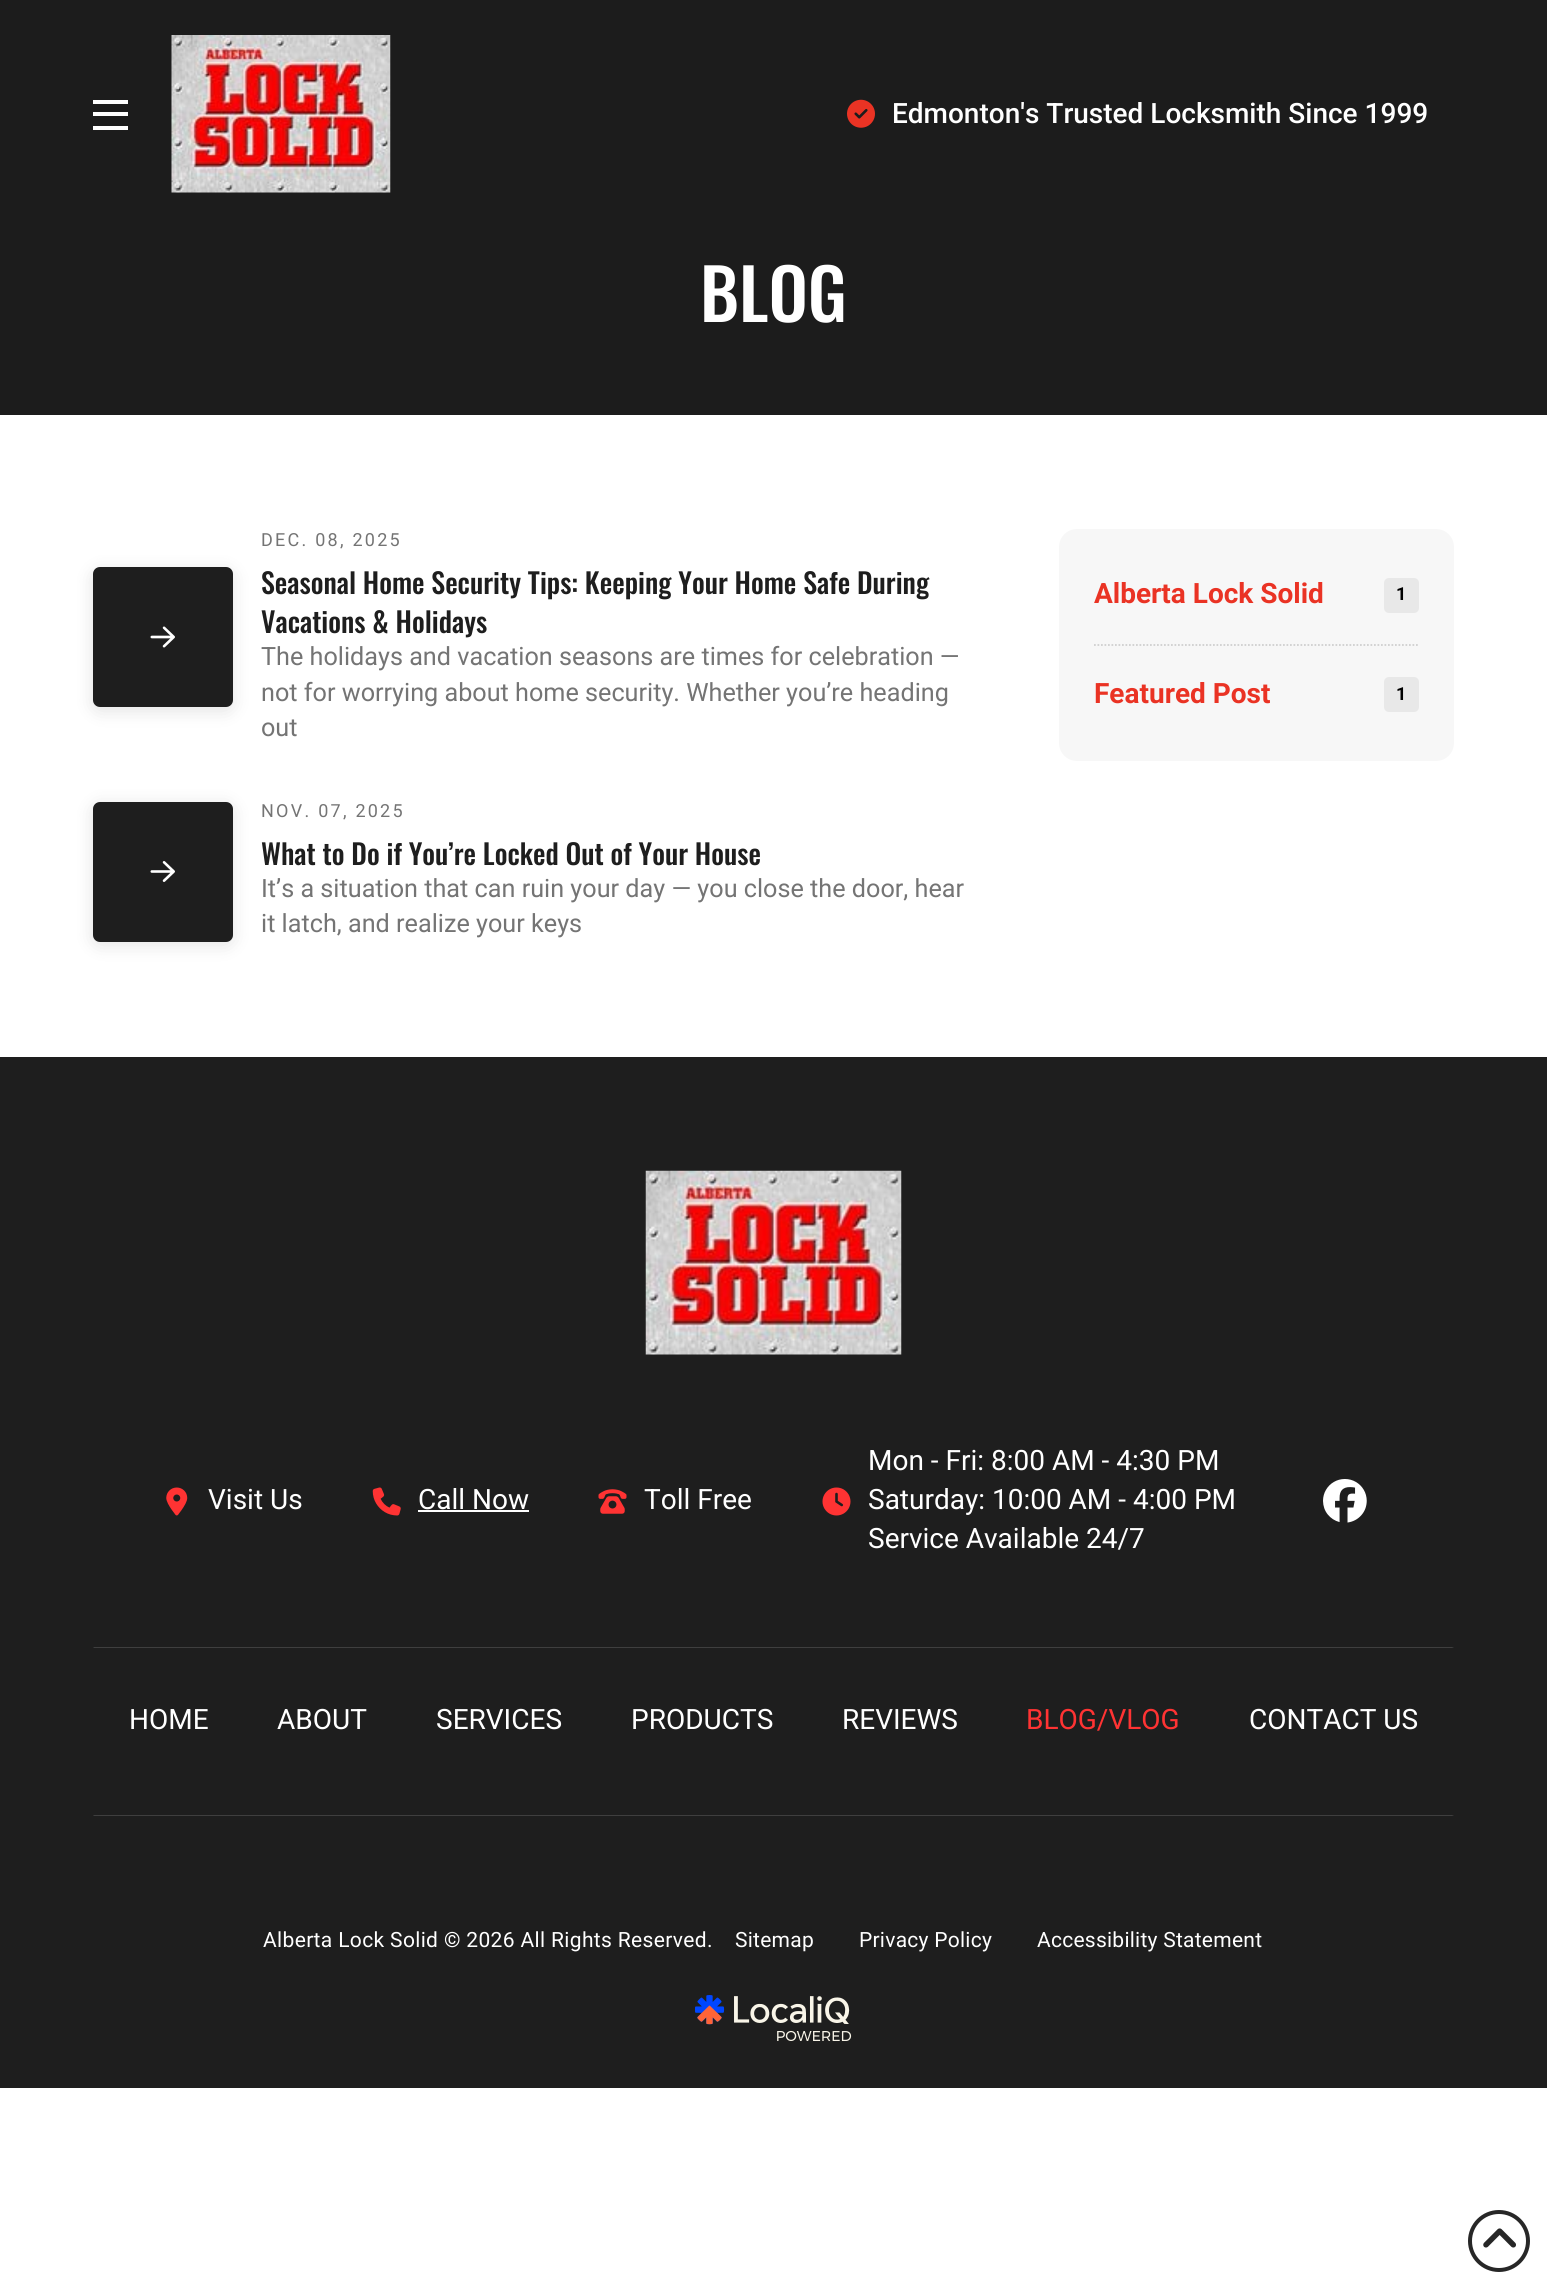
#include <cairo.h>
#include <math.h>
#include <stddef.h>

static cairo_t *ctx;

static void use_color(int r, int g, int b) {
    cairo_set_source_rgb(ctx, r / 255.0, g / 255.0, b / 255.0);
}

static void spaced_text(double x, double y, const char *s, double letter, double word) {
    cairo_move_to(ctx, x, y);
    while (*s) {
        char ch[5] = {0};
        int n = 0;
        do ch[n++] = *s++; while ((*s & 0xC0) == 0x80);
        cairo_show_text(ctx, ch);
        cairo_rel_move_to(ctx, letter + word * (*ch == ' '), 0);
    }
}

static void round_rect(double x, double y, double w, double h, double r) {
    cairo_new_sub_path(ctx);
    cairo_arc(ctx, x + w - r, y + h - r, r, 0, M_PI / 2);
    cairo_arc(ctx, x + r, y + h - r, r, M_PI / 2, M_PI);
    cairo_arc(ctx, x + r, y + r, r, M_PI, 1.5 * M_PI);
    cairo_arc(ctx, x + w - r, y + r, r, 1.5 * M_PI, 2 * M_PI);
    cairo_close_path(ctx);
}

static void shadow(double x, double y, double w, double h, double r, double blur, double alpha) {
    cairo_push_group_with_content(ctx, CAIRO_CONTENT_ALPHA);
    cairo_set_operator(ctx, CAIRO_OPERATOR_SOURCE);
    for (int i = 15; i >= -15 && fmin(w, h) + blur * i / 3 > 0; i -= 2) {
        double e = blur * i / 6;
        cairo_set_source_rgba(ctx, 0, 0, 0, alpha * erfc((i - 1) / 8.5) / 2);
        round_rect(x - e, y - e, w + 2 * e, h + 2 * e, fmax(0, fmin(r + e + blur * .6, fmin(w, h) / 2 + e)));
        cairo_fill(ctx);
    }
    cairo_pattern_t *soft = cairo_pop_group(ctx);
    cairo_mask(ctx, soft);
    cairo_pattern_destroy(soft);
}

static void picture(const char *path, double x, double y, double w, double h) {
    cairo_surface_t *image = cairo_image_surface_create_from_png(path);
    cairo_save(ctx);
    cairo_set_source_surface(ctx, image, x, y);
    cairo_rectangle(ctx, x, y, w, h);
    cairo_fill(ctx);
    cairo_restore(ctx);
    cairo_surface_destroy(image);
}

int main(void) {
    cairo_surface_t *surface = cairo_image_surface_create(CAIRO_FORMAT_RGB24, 1547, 2289);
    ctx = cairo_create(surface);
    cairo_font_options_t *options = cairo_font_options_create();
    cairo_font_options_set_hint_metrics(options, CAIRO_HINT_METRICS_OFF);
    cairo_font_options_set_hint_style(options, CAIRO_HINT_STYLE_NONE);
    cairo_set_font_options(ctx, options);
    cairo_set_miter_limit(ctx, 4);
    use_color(255, 255, 255);
    cairo_paint(ctx);
    use_color(28, 28, 28);
    cairo_rectangle(ctx, 0, 0, 1547, 415);
    cairo_fill(ctx);
    use_color(255, 255, 255);
    cairo_rectangle(ctx, 93, 100, 35, 4);
    cairo_fill(ctx);
    cairo_rectangle(ctx, 93, 112, 35, 4);
    cairo_fill(ctx);
    cairo_rectangle(ctx, 93, 126, 35, 4);
    cairo_fill(ctx);
    picture("img1.png", 171, 35, 220, 158);
    picture("img2.png", 847, 99, 28, 29);
    cairo_select_font_face(ctx, "Roboto Medium", CAIRO_FONT_SLANT_NORMAL, CAIRO_FONT_WEIGHT_NORMAL);
    cairo_set_font_size(ctx, 28);
    cairo_move_to(ctx, 892, 123);
    cairo_show_text(ctx, "Edmonton's Trusted Locksmith Since 1999");
    cairo_select_font_face(ctx, "Oswald Medium", CAIRO_FONT_SLANT_NORMAL, CAIRO_FONT_WEIGHT_NORMAL);
    cairo_set_font_size(ctx, 70);
    cairo_move_to(ctx, 700, 322);
    cairo_show_text(ctx, "BLOG");
    use_color(0, 0, 0);
    shadow(93, 571, 140, 140, 7, 9, 0.11);
    use_color(30, 30, 30);
    round_rect(93, 567, 140, 140, 7);
    cairo_fill(ctx);
    picture("img3.png", 150, 626, 25, 22);
    cairo_select_font_face(ctx, "Roboto", CAIRO_FONT_SLANT_NORMAL, CAIRO_FONT_WEIGHT_NORMAL);
    cairo_set_font_size(ctx, 18);
    use_color(116, 116, 116);
    spaced_text(261, 546, "DEC. 08, 2025", 2.25, 0);
    cairo_select_font_face(ctx, "Oswald Medium", CAIRO_FONT_SLANT_NORMAL, CAIRO_FONT_WEIGHT_NORMAL);
    cairo_set_font_size(ctx, 28);
    use_color(30, 30, 30);
    cairo_move_to(ctx, 261, 594);
    cairo_show_text(ctx, "Seasonal Home Security Tips: Keeping Your Home Safe During");
    cairo_move_to(ctx, 261, 633);
    cairo_show_text(ctx, "Vacations & Holidays");
    cairo_select_font_face(ctx, "Roboto", CAIRO_FONT_SLANT_NORMAL, CAIRO_FONT_WEIGHT_NORMAL);
    cairo_set_font_size(ctx, 25.2);
    use_color(116, 116, 116);
    cairo_move_to(ctx, 261, 665);
    cairo_show_text(ctx, "The holidays and vacation seasons are times for celebration —");
    cairo_move_to(ctx, 261, 701);
    cairo_show_text(ctx, "not for worrying about home security. Whether you’re heading");
    cairo_move_to(ctx, 261, 736);
    cairo_show_text(ctx, "out");
    use_color(0, 0, 0);
    shadow(93, 805, 140, 140, 7, 9, 0.11);
    use_color(30, 30, 30);
    round_rect(93, 802, 140, 140, 7);
    cairo_fill(ctx);
    picture("img4.png", 150, 861, 25, 21);
    cairo_set_font_size(ctx, 18);
    use_color(116, 116, 116);
    spaced_text(261, 817, "NOV. 07, 2025", 2.25, 0);
    cairo_select_font_face(ctx, "Oswald Medium", CAIRO_FONT_SLANT_NORMAL, CAIRO_FONT_WEIGHT_NORMAL);
    cairo_set_font_size(ctx, 28);
    use_color(30, 30, 30);
    cairo_move_to(ctx, 261, 865);
    cairo_show_text(ctx, "What to Do if You’re Locked Out of Your House");
    cairo_select_font_face(ctx, "Roboto", CAIRO_FONT_SLANT_NORMAL, CAIRO_FONT_WEIGHT_NORMAL);
    cairo_set_font_size(ctx, 25.2);
    use_color(116, 116, 116);
    cairo_move_to(ctx, 261, 897);
    cairo_show_text(ctx, "It’s a situation that can ruin your day — you close the door, hear");
    cairo_move_to(ctx, 261, 932);
    cairo_show_text(ctx, "it latch, and realize your keys");
    use_color(247, 247, 247);
    round_rect(1059, 529, 395, 232, 18);
    cairo_fill(ctx);
    cairo_select_font_face(ctx, "Roboto", CAIRO_FONT_SLANT_NORMAL, CAIRO_FONT_WEIGHT_BOLD);
    cairo_set_font_size(ctx, 28);
    use_color(234, 51, 36);
    cairo_move_to(ctx, 1094, 603);
    cairo_show_text(ctx, "Alberta Lock Solid");
    use_color(232, 232, 232);
    round_rect(1384, 578, 35, 35, 5);
    cairo_fill(ctx);
    cairo_set_font_size(ctx, 18);
    use_color(0, 0, 0);
    cairo_move_to(ctx, 1396, 600);
    cairo_show_text(ctx, "1");
    cairo_new_path(ctx);
    cairo_move_to(ctx, 1094, 645);
    cairo_line_to(ctx, 1419, 645);
    use_color(207, 207, 207);
    cairo_set_line_width(ctx, 1.8);
    cairo_set_dash(ctx, (double[]){1.75, 1.75}, 2, 0);
    cairo_stroke(ctx);
    cairo_set_font_size(ctx, 28);
    use_color(234, 51, 36);
    cairo_move_to(ctx, 1094, 703);
    cairo_show_text(ctx, "Featured Post");
    use_color(232, 232, 232);
    round_rect(1384, 677, 35, 35, 5);
    cairo_fill(ctx);
    cairo_set_font_size(ctx, 18);
    use_color(0, 0, 0);
    cairo_move_to(ctx, 1396, 700);
    cairo_show_text(ctx, "1");
    use_color(30, 30, 30);
    cairo_rectangle(ctx, 0, 1057, 1547, 1031);
    cairo_fill(ctx);
    picture("img5.png", 645, 1170, 257, 185);
    picture("img6.png", 166, 1487, 22, 29);
    cairo_select_font_face(ctx, "Roboto", CAIRO_FONT_SLANT_NORMAL, CAIRO_FONT_WEIGHT_NORMAL);
    cairo_set_font_size(ctx, 28);
    use_color(255, 255, 255);
    cairo_move_to(ctx, 208, 1509);
    cairo_show_text(ctx, "Visit Us");
    picture("img7.png", 372, 1487, 29, 29);
    cairo_move_to(ctx, 418, 1509);
    cairo_show_text(ctx, "Call Now");
    cairo_rectangle(ctx, 418, 1510, 111, 2);
    cairo_fill(ctx);
    picture("img8.png", 598, 1489, 29, 25);
    cairo_move_to(ctx, 644, 1509);
    cairo_show_text(ctx, "Toll Free");
    picture("img9.png", 822, 1487, 29, 29);
    cairo_move_to(ctx, 868, 1470);
    cairo_show_text(ctx, "Mon - Fri: 8:00 AM - 4:30 PM");
    cairo_move_to(ctx, 868, 1509);
    cairo_show_text(ctx, "Saturday: 10:00 AM - 4:00 PM");
    cairo_move_to(ctx, 868, 1548);
    cairo_show_text(ctx, "Service Available 24/7");
    picture("img10.png", 1323, 1479, 44, 44);
    use_color(63, 63, 63);
    cairo_new_path(ctx);
    cairo_move_to(ctx, 93, 1647);
    cairo_line_to(ctx, 1454, 1647);
    cairo_line_to(ctx, 1452, 1648);
    cairo_line_to(ctx, 94, 1648);
    cairo_close_path(ctx);
    cairo_fill(ctx);
    cairo_new_path(ctx);
    cairo_move_to(ctx, 1454, 1816);
    cairo_line_to(ctx, 93, 1816);
    cairo_line_to(ctx, 94, 1815);
    cairo_line_to(ctx, 1452, 1815);
    cairo_close_path(ctx);
    cairo_fill(ctx);
    use_color(255, 255, 255);
    cairo_move_to(ctx, 129, 1729);
    cairo_show_text(ctx, "HOME");
    cairo_move_to(ctx, 277, 1729);
    cairo_show_text(ctx, "ABOUT");
    cairo_move_to(ctx, 436, 1729);
    cairo_show_text(ctx, "SERVICES");
    cairo_move_to(ctx, 631, 1729);
    cairo_show_text(ctx, "PRODUCTS");
    cairo_move_to(ctx, 842, 1729);
    cairo_show_text(ctx, "REVIEWS");
    use_color(255, 51, 51);
    cairo_move_to(ctx, 1026, 1729);
    cairo_show_text(ctx, "BLOG/VLOG");
    use_color(255, 255, 255);
    cairo_move_to(ctx, 1249, 1729);
    cairo_show_text(ctx, "CONTACT US");
    cairo_set_font_size(ctx, 21);
    spaced_text(263, 1947, "Alberta Lock Solid © 2026 All Rights Reserved.", 0.35, 0);
    spaced_text(735, 1947, "Sitemap", 0.25, 0);
    spaced_text(859, 1947, "Privacy Policy", 0.25, 0);
    spaced_text(1037, 1947, "Accessibility Statement", 0.25, 0);
    picture("img11.png", 695, 1995, 157, 46);
    cairo_arc(ctx, 1499, 2241, 29, 0, 2 * M_PI);
    use_color(39, 39, 39);
    cairo_set_line_width(ctx, 4);
    cairo_set_dash(ctx, NULL, 0, 0);
    cairo_stroke(ctx);
    picture("img12.png", 1483, 2228, 33, 20);
    cairo_surface_write_to_png(surface, "result.png");
    cairo_font_options_destroy(options);
    cairo_destroy(ctx);
    cairo_surface_destroy(surface);
    return 0;
}
